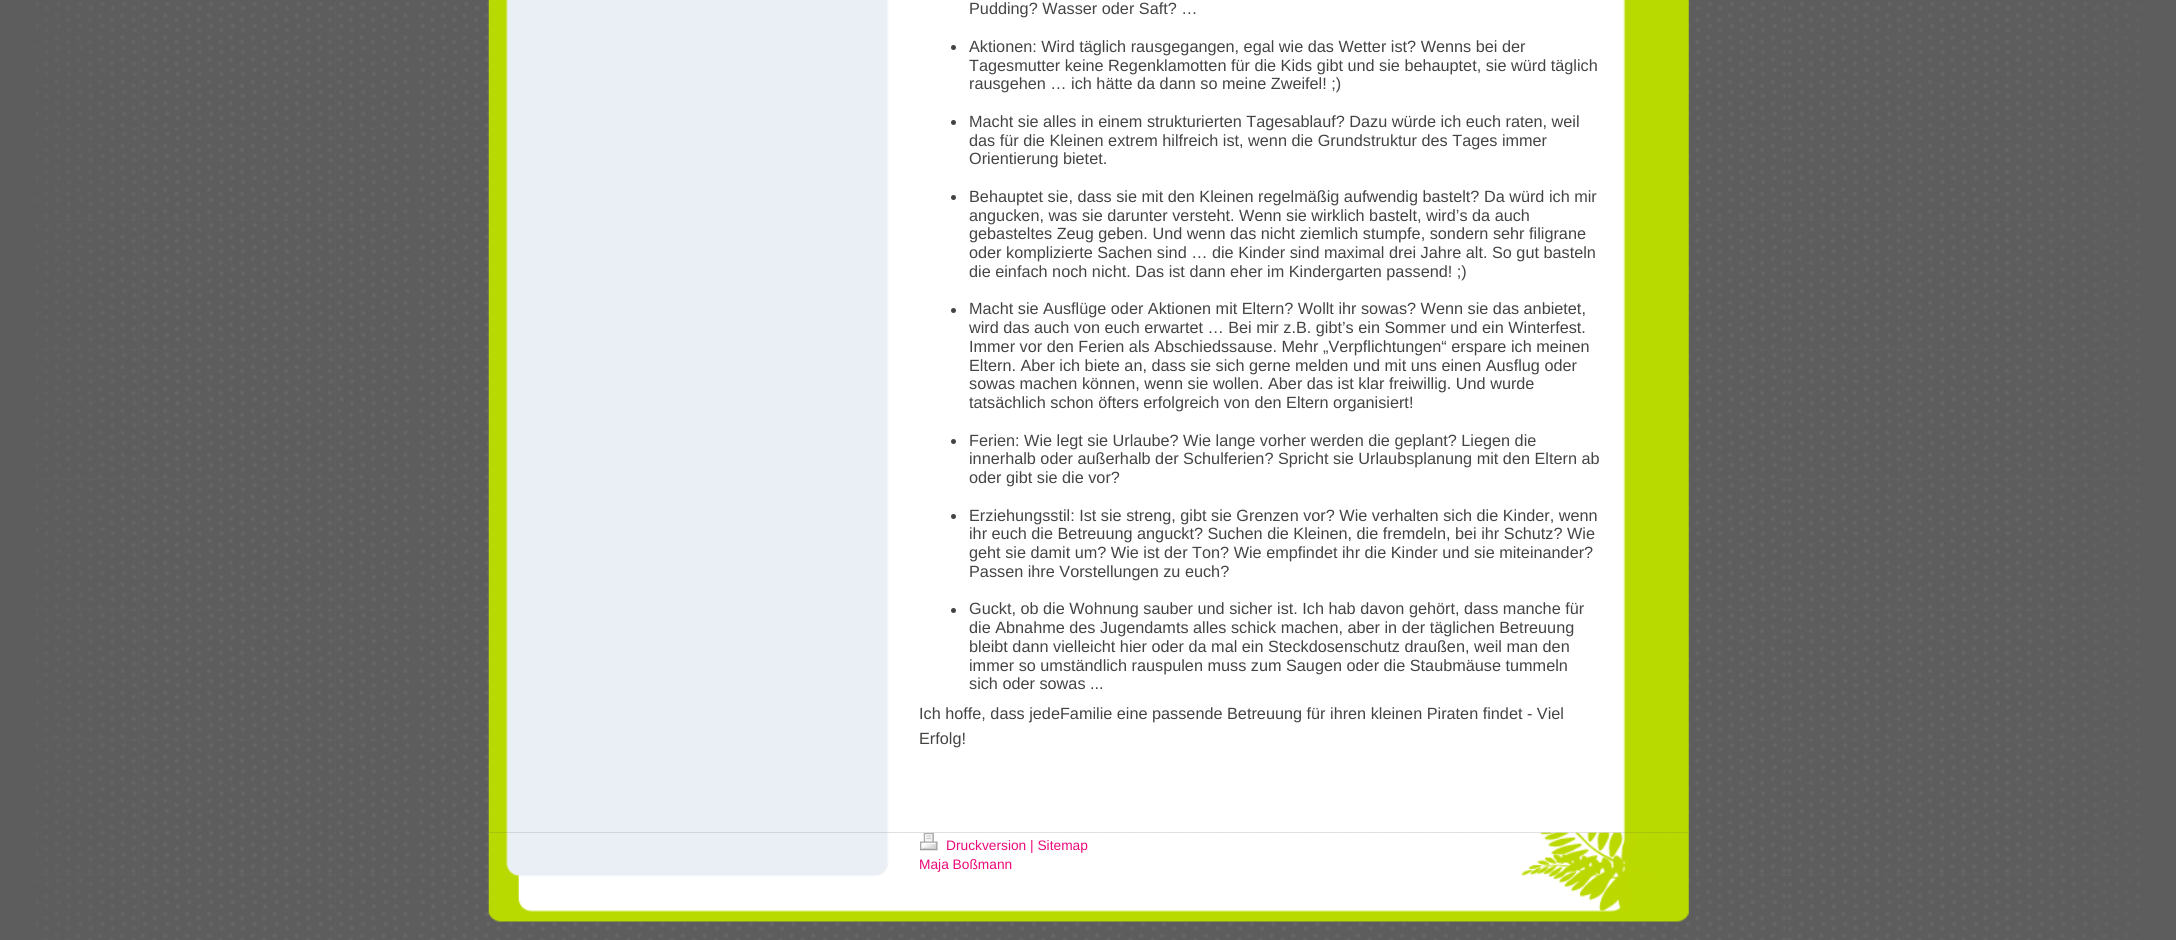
#include <cairo.h>
#include <math.h>
#include <stddef.h>

static cairo_t *ctx;

static void use_color(int r, int g, int b) {
    cairo_set_source_rgb(ctx, r / 255.0, g / 255.0, b / 255.0);
}

static void picture(const char *path, double x, double y, double w, double h) {
    cairo_surface_t *image = cairo_image_surface_create_from_png(path);
    cairo_save(ctx);
    cairo_set_source_surface(ctx, image, x, y);
    cairo_rectangle(ctx, x, y, w, h);
    cairo_fill(ctx);
    cairo_restore(ctx);
    cairo_surface_destroy(image);
}

int main(void) {
    cairo_surface_t *surface = cairo_image_surface_create(CAIRO_FORMAT_RGB24, 2176, 940);
    ctx = cairo_create(surface);
    cairo_font_options_t *options = cairo_font_options_create();
    cairo_font_options_set_hint_metrics(options, CAIRO_HINT_METRICS_OFF);
    cairo_font_options_set_hint_style(options, CAIRO_HINT_STYLE_NONE);
    cairo_set_font_options(ctx, options);
    cairo_set_miter_limit(ctx, 4);
    use_color(93, 93, 93);
    cairo_paint(ctx);
    picture("img1.png", 36, 2, 2104, 938);
    picture("img2.png", 488, 0, 1201, 833);
    cairo_select_font_face(ctx, "Liberation Sans", CAIRO_FONT_SLANT_NORMAL, CAIRO_FONT_WEIGHT_NORMAL);
    cairo_set_font_size(ctx, 16.25);
    use_color(69, 68, 67);
    cairo_move_to(ctx, 969, 14);
    cairo_show_text(ctx, "Pudding? Wasser oder Saft? …");
    cairo_new_path(ctx);
    cairo_arc(ctx, 953.5, 47.5, 2.5, 0, 2 * M_PI);
    cairo_fill(ctx);
    cairo_move_to(ctx, 969, 52);
    cairo_show_text(ctx, "Aktionen: Wird täglich rausgegangen, egal wie das Wetter ist? Wenns bei der");
    cairo_move_to(ctx, 969, 71);
    cairo_show_text(ctx, "Tagesmutter keine Regenklamotten für die Kids gibt und sie behauptet, sie würd täglich");
    cairo_move_to(ctx, 969, 89);
    cairo_show_text(ctx, "rausgehen … ich hätte da dann so meine Zweifel! ;)");
    cairo_new_path(ctx);
    cairo_arc(ctx, 953.5, 122.5, 2.5, 0, 2 * M_PI);
    cairo_fill(ctx);
    cairo_move_to(ctx, 969, 127);
    cairo_show_text(ctx, "Macht sie alles in einem strukturierten Tagesablauf? Dazu würde ich euch raten, weil");
    cairo_move_to(ctx, 969, 146);
    cairo_show_text(ctx, "das für die Kleinen extrem hilfreich ist, wenn die Grundstruktur des Tages immer");
    cairo_move_to(ctx, 969, 164);
    cairo_show_text(ctx, "Orientierung bietet.");
    cairo_new_path(ctx);
    cairo_arc(ctx, 953.5, 197.5, 2.5, 0, 2 * M_PI);
    cairo_fill(ctx);
    cairo_move_to(ctx, 969, 202);
    cairo_show_text(ctx, "Behauptet sie, dass sie mit den Kleinen regelmäßig aufwendig bastelt? Da würd ich mir");
    cairo_move_to(ctx, 969, 221);
    cairo_show_text(ctx, "angucken, was sie darunter versteht. Wenn sie wirklich bastelt, wird’s da auch");
    cairo_move_to(ctx, 969, 239);
    cairo_show_text(ctx, "gebasteltes Zeug geben. Und wenn das nicht ziemlich stumpfe, sondern sehr filigrane");
    cairo_move_to(ctx, 969, 258);
    cairo_show_text(ctx, "oder komplizierte Sachen sind … die Kinder sind maximal drei Jahre alt. So gut basteln");
    cairo_move_to(ctx, 969, 277);
    cairo_show_text(ctx, "die einfach noch nicht. Das ist dann eher im Kindergarten passend! ;)");
    cairo_new_path(ctx);
    cairo_arc(ctx, 953.5, 310.5, 2.5, 0, 2 * M_PI);
    cairo_fill(ctx);
    cairo_move_to(ctx, 969, 314);
    cairo_show_text(ctx, "Macht sie Ausflüge oder Aktionen mit Eltern? Wollt ihr sowas? Wenn sie das anbietet,");
    cairo_move_to(ctx, 969, 333);
    cairo_show_text(ctx, "wird das auch von euch erwartet … Bei mir z.B. gibt’s ein Sommer und ein Winterfest.");
    cairo_move_to(ctx, 969, 352);
    cairo_show_text(ctx, "Immer vor den Ferien als Abschiedssause. Mehr „Verpflichtungen“ erspare ich meinen");
    cairo_move_to(ctx, 969, 371);
    cairo_show_text(ctx, "Eltern. Aber ich biete an, dass sie sich gerne melden und mit uns einen Ausflug oder");
    cairo_move_to(ctx, 969, 389);
    cairo_show_text(ctx, "sowas machen können, wenn sie wollen. Aber das ist klar freiwillig. Und wurde");
    cairo_move_to(ctx, 969, 408);
    cairo_show_text(ctx, "tatsächlich schon öfters erfolgreich von den Eltern organisiert!");
    cairo_new_path(ctx);
    cairo_arc(ctx, 953.5, 441.5, 2.5, 0, 2 * M_PI);
    cairo_fill(ctx);
    cairo_move_to(ctx, 969, 446);
    cairo_show_text(ctx, "Ferien: Wie legt sie Urlaube? Wie lange vorher werden die geplant? Liegen die");
    cairo_move_to(ctx, 969, 464);
    cairo_show_text(ctx, "innerhalb oder außerhalb der Schulferien? Spricht sie Urlaubsplanung mit den Eltern ab");
    cairo_move_to(ctx, 969, 483);
    cairo_show_text(ctx, "oder gibt sie die vor?");
    cairo_new_path(ctx);
    cairo_arc(ctx, 953.5, 516.5, 2.5, 0, 2 * M_PI);
    cairo_fill(ctx);
    cairo_move_to(ctx, 969, 521);
    cairo_show_text(ctx, "Erziehungsstil: Ist sie streng, gibt sie Grenzen vor? Wie verhalten sich die Kinder, wenn");
    cairo_move_to(ctx, 969, 539);
    cairo_show_text(ctx, "ihr euch die Betreuung anguckt? Suchen die Kleinen, die fremdeln, bei ihr Schutz? Wie");
    cairo_move_to(ctx, 969, 558);
    cairo_show_text(ctx, "geht sie damit um? Wie ist der Ton? Wie empfindet ihr die Kinder und sie miteinander?");
    cairo_move_to(ctx, 969, 577);
    cairo_show_text(ctx, "Passen ihre Vorstellungen zu euch?");
    cairo_new_path(ctx);
    cairo_arc(ctx, 953.5, 610.5, 2.5, 0, 2 * M_PI);
    cairo_fill(ctx);
    cairo_move_to(ctx, 969, 614);
    cairo_show_text(ctx, "Guckt, ob die Wohnung sauber und sicher ist. Ich hab davon gehört, dass manche für");
    cairo_move_to(ctx, 969, 633);
    cairo_show_text(ctx, "die Abnahme des Jugendamts alles schick machen, aber in der täglichen Betreuung");
    cairo_move_to(ctx, 969, 652);
    cairo_show_text(ctx, "bleibt dann vielleicht hier oder da mal ein Steckdosenschutz draußen, weil man den");
    cairo_move_to(ctx, 969, 671);
    cairo_show_text(ctx, "immer so umständlich rauspulen muss zum Saugen oder die Staubmäuse tummeln");
    cairo_move_to(ctx, 969, 689);
    cairo_show_text(ctx, "sich oder sowas ...");
    cairo_move_to(ctx, 919, 719);
    cairo_show_text(ctx, "Ich hoffe, dass jedeFamilie eine passende Betreuung für ihren kleinen Piraten findet - Viel");
    cairo_move_to(ctx, 919, 744);
    cairo_show_text(ctx, "Erfolg!");
    picture("img3.png", 488, 832, 1201, 90);
    picture("img4.png", 920, 832, 18, 19);
    cairo_set_font_size(ctx, 13.75);
    use_color(234, 10, 122);
    cairo_move_to(ctx, 946, 850);
    cairo_show_text(ctx, "Druckversion | Sitemap");
    cairo_move_to(ctx, 919, 869);
    cairo_show_text(ctx, "Maja Boßmann");
    cairo_surface_write_to_png(surface, "result.png");
    cairo_font_options_destroy(options);
    cairo_destroy(ctx);
    cairo_surface_destroy(surface);
    return 0;
}
